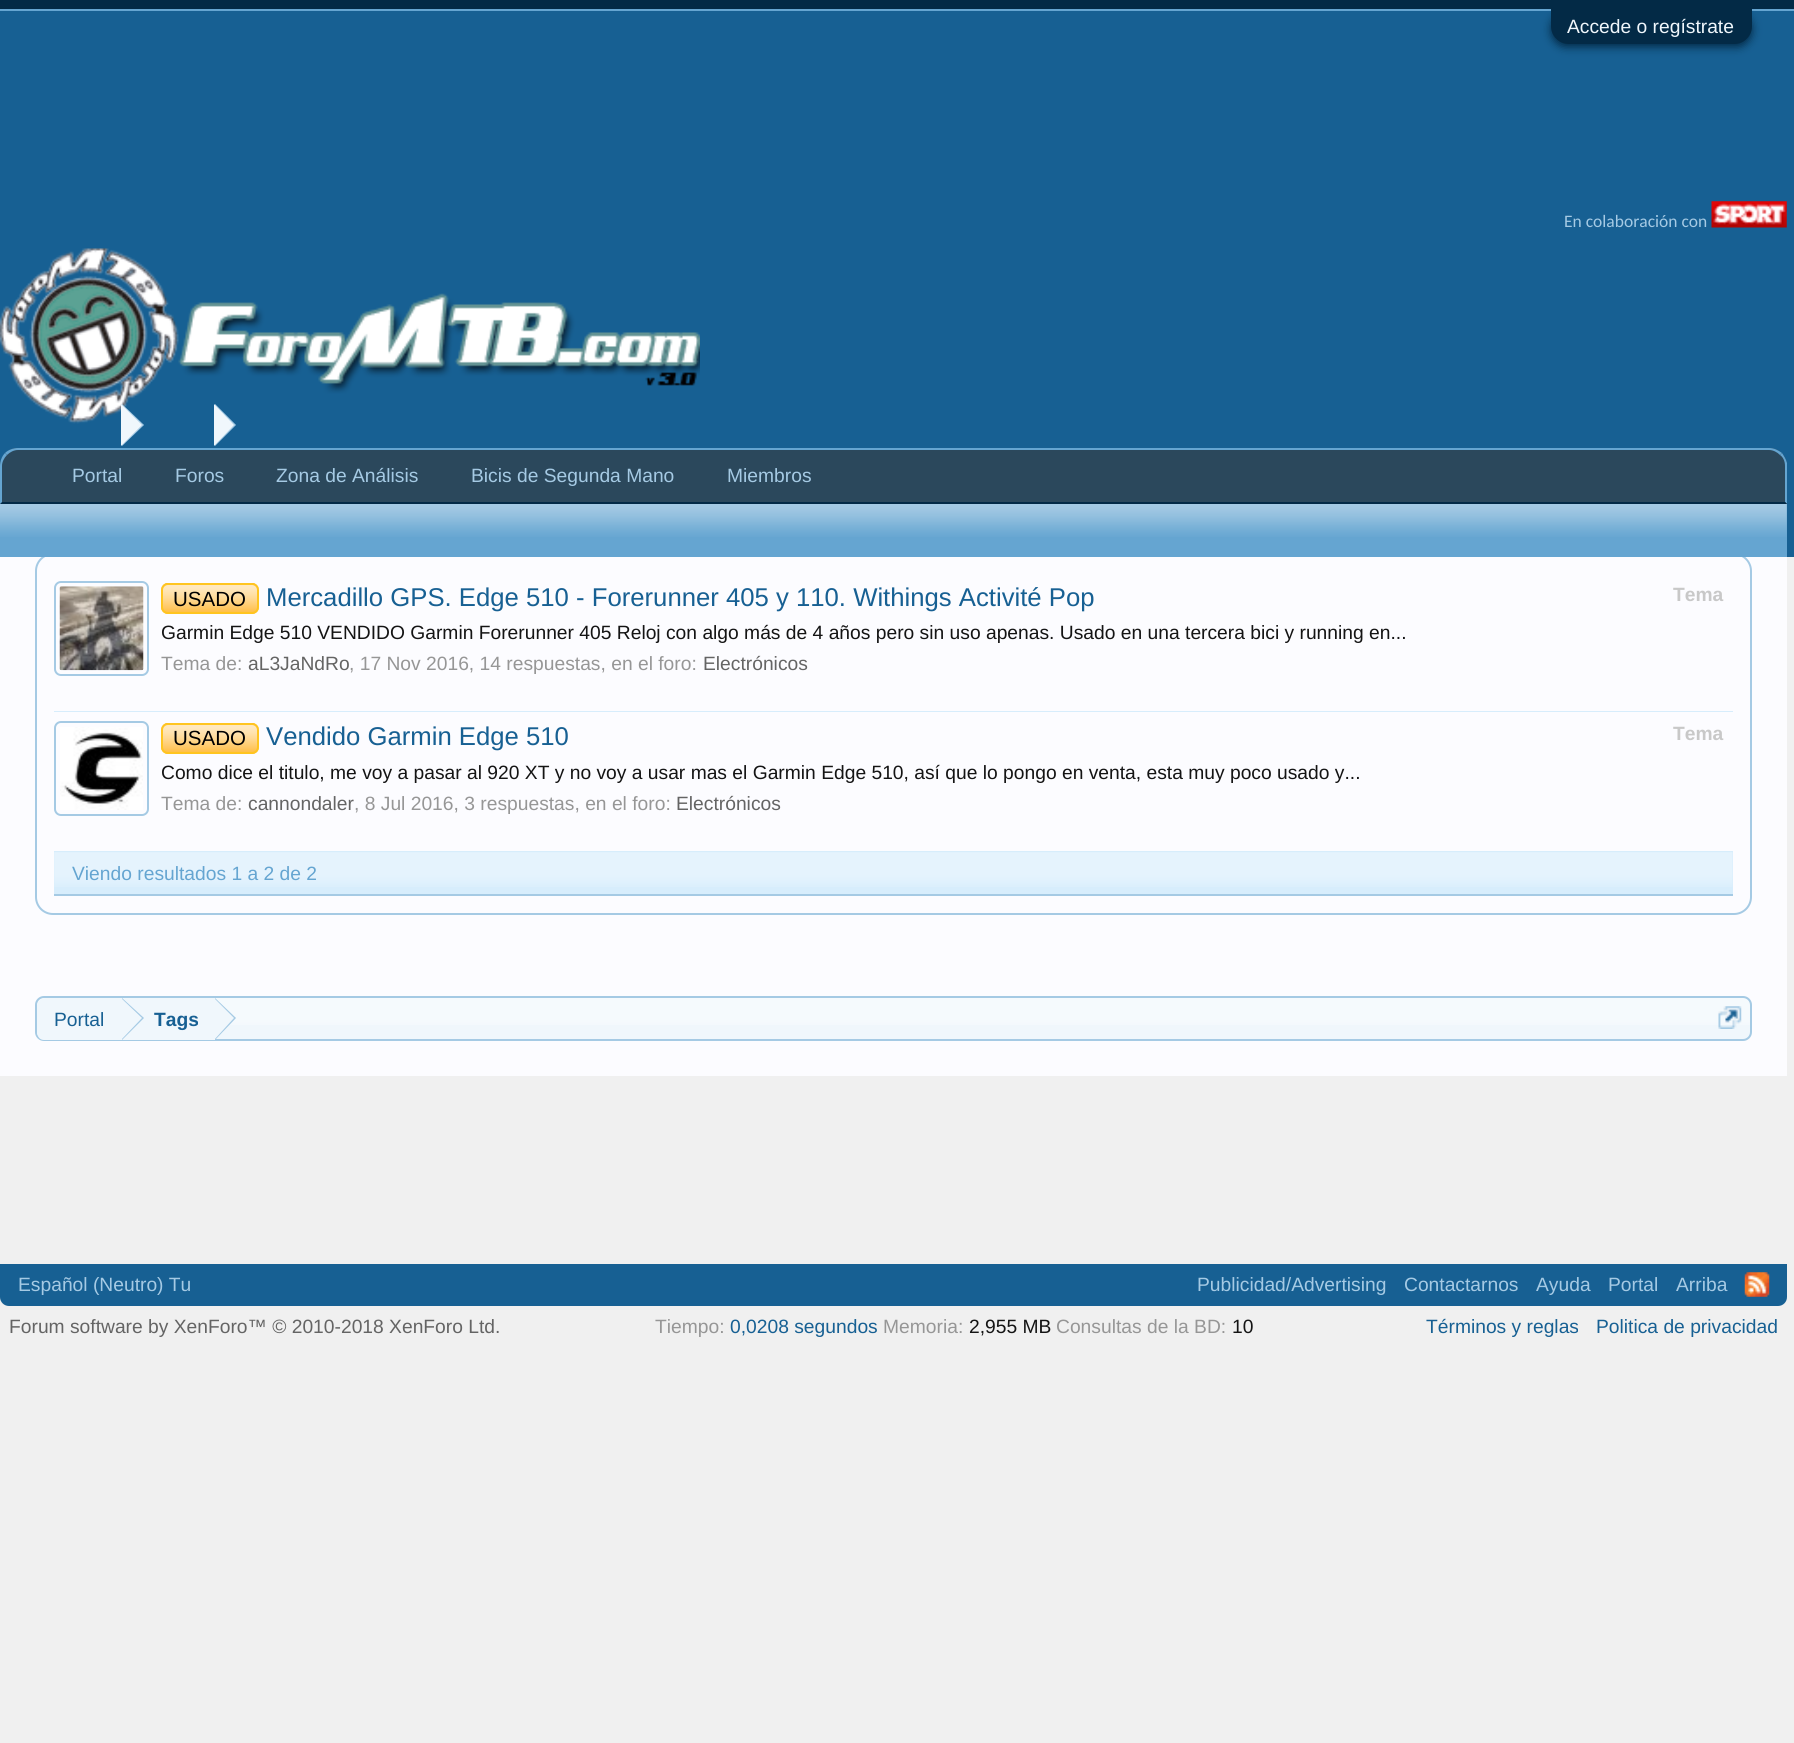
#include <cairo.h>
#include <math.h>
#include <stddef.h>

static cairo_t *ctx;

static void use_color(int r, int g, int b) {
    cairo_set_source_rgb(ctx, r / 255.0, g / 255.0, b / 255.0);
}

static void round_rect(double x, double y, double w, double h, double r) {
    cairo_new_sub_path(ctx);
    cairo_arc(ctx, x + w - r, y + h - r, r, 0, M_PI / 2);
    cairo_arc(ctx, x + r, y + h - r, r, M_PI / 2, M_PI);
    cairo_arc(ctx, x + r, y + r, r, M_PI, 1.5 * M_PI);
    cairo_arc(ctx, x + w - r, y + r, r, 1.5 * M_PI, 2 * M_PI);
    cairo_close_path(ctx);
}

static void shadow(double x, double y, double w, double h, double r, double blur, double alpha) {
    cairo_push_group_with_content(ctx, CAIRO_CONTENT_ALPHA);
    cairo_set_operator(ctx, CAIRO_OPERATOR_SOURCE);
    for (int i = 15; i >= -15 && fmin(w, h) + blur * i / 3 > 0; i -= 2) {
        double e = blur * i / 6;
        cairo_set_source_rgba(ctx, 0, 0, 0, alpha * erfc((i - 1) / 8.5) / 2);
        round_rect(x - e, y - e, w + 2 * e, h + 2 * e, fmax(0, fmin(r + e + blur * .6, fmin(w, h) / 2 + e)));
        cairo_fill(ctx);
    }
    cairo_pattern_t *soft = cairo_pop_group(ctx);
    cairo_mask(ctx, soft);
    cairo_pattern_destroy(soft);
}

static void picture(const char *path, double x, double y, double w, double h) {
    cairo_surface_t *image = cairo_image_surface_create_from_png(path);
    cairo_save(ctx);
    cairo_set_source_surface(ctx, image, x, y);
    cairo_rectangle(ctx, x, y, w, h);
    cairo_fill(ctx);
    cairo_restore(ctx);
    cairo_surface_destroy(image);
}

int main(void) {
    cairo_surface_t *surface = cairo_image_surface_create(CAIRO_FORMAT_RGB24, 1794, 1743);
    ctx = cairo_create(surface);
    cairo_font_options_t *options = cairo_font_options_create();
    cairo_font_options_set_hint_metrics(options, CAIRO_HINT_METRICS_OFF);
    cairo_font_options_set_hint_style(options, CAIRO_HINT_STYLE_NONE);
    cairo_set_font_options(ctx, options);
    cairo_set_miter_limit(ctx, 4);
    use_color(240, 240, 240);
    cairo_paint(ctx);
    use_color(3, 42, 70);
    cairo_rectangle(ctx, 0, 0, 1794, 9);
    cairo_fill(ctx);
    use_color(101, 165, 209);
    cairo_rectangle(ctx, 0, 9, 1794, 2);
    cairo_fill(ctx);
    use_color(252, 252, 255);
    cairo_rectangle(ctx, 0, 557, 1787, 519);
    cairo_fill(ctx);
    round_rect(36, 554, 1715, 360, 17);
    use_color(165, 202, 228);
    cairo_stroke(ctx);
    use_color(23, 96, 147);
    cairo_rectangle(ctx, 0, 11, 1794, 546);
    cairo_fill(ctx);
    use_color(3, 42, 70);
    shadow(1551, 12, 201, 35, 17.5, 4.5, 1);
    use_color(3, 42, 70);
    cairo_new_path(ctx);
    cairo_move_to(ctx, 1551, 9);
    cairo_line_to(ctx, 1752, 9);
    cairo_line_to(ctx, 1752, 26.5);
    cairo_curve_to(ctx, 1752, 36, 1744, 44, 1734.5, 44);
    cairo_line_to(ctx, 1568.5, 44);
    cairo_curve_to(ctx, 1559, 44, 1551, 36, 1551, 26.5);
    cairo_close_path(ctx);
    cairo_fill(ctx);
    cairo_select_font_face(ctx, "Liberation Sans", CAIRO_FONT_SLANT_NORMAL, CAIRO_FONT_WEIGHT_NORMAL);
    cairo_set_font_size(ctx, 19.25);
    use_color(240, 247, 252);
    cairo_move_to(ctx, 1567, 33);
    cairo_show_text(ctx, "Accede o regístrate");
    cairo_select_font_face(ctx, "Carlito", CAIRO_FONT_SLANT_NORMAL, CAIRO_FONT_WEIGHT_NORMAL);
    cairo_set_font_size(ctx, 17.5);
    use_color(165, 202, 228);
    cairo_move_to(ctx, 1564, 227);
    cairo_show_text(ctx, "En colaboración con");
    picture("img1.png", 1711, 201, 76, 27);
    picture("img2.png", 0, 248, 700, 176);
    use_color(43, 72, 92);
    cairo_new_path(ctx);
    cairo_move_to(ctx, 18, 448);
    cairo_line_to(ctx, 1769, 448);
    cairo_curve_to(ctx, 1779, 448, 1787, 456, 1787, 466);
    cairo_line_to(ctx, 1787, 504);
    cairo_line_to(ctx, 0, 504);
    cairo_line_to(ctx, 0, 466);
    cairo_curve_to(ctx, 0, 456, 8, 448, 18, 448);
    cairo_close_path(ctx);
    cairo_fill(ctx);
    use_color(101, 165, 209);
    cairo_new_path(ctx);
    cairo_move_to(ctx, 18, 448);
    cairo_curve_to(ctx, 13, 448, 8, 450, 5, 453);
    cairo_line_to(ctx, 7, 455);
    cairo_curve_to(ctx, 10, 452, 14, 450, 18, 450);
    cairo_line_to(ctx, 1769, 450);
    cairo_curve_to(ctx, 1773, 450, 1777, 452, 1780, 455);
    cairo_line_to(ctx, 1782, 453);
    cairo_curve_to(ctx, 1778, 450, 1774, 448, 1769, 448);
    cairo_close_path(ctx);
    cairo_fill(ctx);
    cairo_new_path(ctx);
    cairo_move_to(ctx, 1787, 463);
    cairo_line_to(ctx, 1787, 504);
    cairo_line_to(ctx, 1785, 502);
    cairo_line_to(ctx, 1785, 466);
    cairo_curve_to(ctx, 1785, 461, 1783, 457, 1780, 455);
    cairo_line_to(ctx, 1782, 453);
    cairo_curve_to(ctx, 1784, 456, 1786, 459, 1787, 463);
    cairo_close_path(ctx);
    cairo_fill(ctx);
    use_color(3, 42, 70);
    cairo_new_path(ctx);
    cairo_move_to(ctx, 1787, 504);
    cairo_line_to(ctx, 1785, 502);
    cairo_line_to(ctx, 2, 502);
    cairo_line_to(ctx, 0, 504);
    cairo_close_path(ctx);
    cairo_fill(ctx);
    use_color(101, 165, 209);
    cairo_new_path(ctx);
    cairo_move_to(ctx, 0, 504);
    cairo_line_to(ctx, 2, 502);
    cairo_line_to(ctx, 2, 466);
    cairo_curve_to(ctx, 2, 462, 4, 458, 7, 455);
    cairo_line_to(ctx, 5, 453);
    cairo_curve_to(ctx, 2, 456, 0, 461, 0, 466);
    cairo_close_path(ctx);
    cairo_fill(ctx);
    cairo_select_font_face(ctx, "Liberation Sans", CAIRO_FONT_SLANT_NORMAL, CAIRO_FONT_WEIGHT_NORMAL);
    cairo_set_font_size(ctx, 19.25);
    use_color(165, 202, 228);
    cairo_move_to(ctx, 72, 482);
    cairo_show_text(ctx, "Portal");
    cairo_move_to(ctx, 175, 482);
    cairo_show_text(ctx, "Foros");
    cairo_move_to(ctx, 276, 482);
    cairo_show_text(ctx, "Zona de Análisis");
    cairo_move_to(ctx, 471, 482);
    cairo_show_text(ctx, "Bicis de Segunda Mano");
    cairo_move_to(ctx, 727, 482);
    cairo_show_text(ctx, "Miembros");
    use_color(101, 165, 209);
    cairo_rectangle(ctx, 0, 504, 1787, 53);
    cairo_fill(ctx);
    picture("img3.png", 0, 504, 1787, 33);
    use_color(165, 202, 228);
    cairo_new_path(ctx);
    cairo_move_to(ctx, 122, 446);
    cairo_line_to(ctx, 122, 404);
    cairo_line_to(ctx, 144, 425);
    cairo_close_path(ctx);
    cairo_fill(ctx);
    use_color(240, 247, 252);
    cairo_new_path(ctx);
    cairo_move_to(ctx, 121, 446);
    cairo_line_to(ctx, 121, 404);
    cairo_line_to(ctx, 142, 425);
    cairo_close_path(ctx);
    cairo_fill(ctx);
    use_color(165, 202, 228);
    cairo_new_path(ctx);
    cairo_move_to(ctx, 215, 446);
    cairo_line_to(ctx, 215, 404);
    cairo_line_to(ctx, 236, 425);
    cairo_close_path(ctx);
    cairo_fill(ctx);
    use_color(240, 247, 252);
    cairo_new_path(ctx);
    cairo_move_to(ctx, 214, 446);
    cairo_line_to(ctx, 214, 404);
    cairo_line_to(ctx, 234, 425);
    cairo_close_path(ctx);
    cairo_fill(ctx);
    use_color(215, 237, 252);
    cairo_rectangle(ctx, 54, 711, 1679, 1);
    cairo_fill(ctx);
    round_rect(55, 582, 93, 93, 6);
    use_color(165, 202, 228);
    cairo_stroke(ctx);
    picture("img4.png", 59, 586, 85, 85);
    use_color(255, 165, 0);
    round_rect(161, 583, 98, 31, 7);
    cairo_fill(ctx);
    picture("img5.png", 161, 584, 98, 30);
    round_rect(162, 584, 96, 29, 6);
    use_color(255, 197, 32);
    cairo_stroke(ctx);
    cairo_set_font_size(ctx, 20.5);
    use_color(0, 0, 0);
    cairo_move_to(ctx, 173, 606);
    cairo_show_text(ctx, "USADO");
    cairo_set_font_size(ctx, 25.7);
    use_color(23, 96, 147);
    cairo_move_to(ctx, 266, 606);
    cairo_show_text(ctx, "Mercadillo GPS. Edge 510 - Forerunner 405 y 110. Withings Activité Pop");
    cairo_select_font_face(ctx, "Liberation Sans", CAIRO_FONT_SLANT_NORMAL, CAIRO_FONT_WEIGHT_BOLD);
    cairo_set_font_size(ctx, 19.25);
    use_color(200, 200, 200);
    cairo_move_to(ctx, 1673, 601);
    cairo_show_text(ctx, "Tema");
    cairo_select_font_face(ctx, "Liberation Sans", CAIRO_FONT_SLANT_NORMAL, CAIRO_FONT_WEIGHT_NORMAL);
    use_color(20, 20, 20);
    cairo_move_to(ctx, 161, 639);
    cairo_show_text(ctx, "Garmin Edge 510 VENDIDO Garmin Forerunner 405 Reloj con algo más de 4 años pero sin uso apenas. Usado en una tercera bici y running en...");
    use_color(150, 150, 150);
    cairo_move_to(ctx, 161, 670);
    cairo_show_text(ctx, "Tema de:");
    use_color(100, 100, 100);
    cairo_move_to(ctx, 248, 670);
    cairo_show_text(ctx, "aL3JaNdRo");
    use_color(150, 150, 150);
    cairo_move_to(ctx, 349, 670);
    cairo_show_text(ctx, ", 17 Nov 2016, 14 respuestas, en el foro:");
    use_color(100, 100, 100);
    cairo_move_to(ctx, 703, 670);
    cairo_show_text(ctx, "Electrónicos");
    use_color(215, 237, 252);
    cairo_rectangle(ctx, 54, 851, 1679, 43);
    cairo_fill(ctx);
    round_rect(55, 722, 93, 93, 6);
    use_color(165, 202, 228);
    cairo_stroke(ctx);
    picture("img6.png", 60, 727, 83, 83);
    use_color(255, 165, 0);
    round_rect(161, 723, 98, 31, 7);
    cairo_fill(ctx);
    picture("img7.png", 161, 724, 98, 30);
    round_rect(162, 724, 96, 29, 6);
    use_color(255, 197, 32);
    cairo_stroke(ctx);
    cairo_set_font_size(ctx, 20.5);
    use_color(0, 0, 0);
    cairo_move_to(ctx, 173, 745);
    cairo_show_text(ctx, "USADO");
    cairo_set_font_size(ctx, 25.7);
    use_color(23, 96, 147);
    cairo_move_to(ctx, 266, 745);
    cairo_show_text(ctx, "Vendido Garmin Edge 510");
    cairo_select_font_face(ctx, "Liberation Sans", CAIRO_FONT_SLANT_NORMAL, CAIRO_FONT_WEIGHT_BOLD);
    cairo_set_font_size(ctx, 19.25);
    use_color(200, 200, 200);
    cairo_move_to(ctx, 1673, 740);
    cairo_show_text(ctx, "Tema");
    cairo_select_font_face(ctx, "Liberation Sans", CAIRO_FONT_SLANT_NORMAL, CAIRO_FONT_WEIGHT_NORMAL);
    use_color(20, 20, 20);
    cairo_move_to(ctx, 161, 779);
    cairo_show_text(ctx, "Como dice el titulo, me voy a pasar al 920 XT y no voy a usar mas el Garmin Edge 510, así que lo pongo en venta, esta muy poco usado y...");
    use_color(150, 150, 150);
    cairo_move_to(ctx, 161, 810);
    cairo_show_text(ctx, "Tema de:");
    use_color(100, 100, 100);
    cairo_move_to(ctx, 248, 810);
    cairo_show_text(ctx, "cannondaler");
    use_color(150, 150, 150);
    cairo_move_to(ctx, 354, 810);
    cairo_show_text(ctx, ", 8 Jul 2016, 3 respuestas, en el foro:");
    use_color(100, 100, 100);
    cairo_move_to(ctx, 676, 810);
    cairo_show_text(ctx, "Electrónicos");
    picture("img8.png", 54, 852, 1679, 35);
    use_color(165, 202, 228);
    cairo_rectangle(ctx, 54, 894, 1679, 2);
    cairo_fill(ctx);
    use_color(101, 165, 209);
    cairo_move_to(ctx, 72, 880);
    cairo_show_text(ctx, "Viendo resultados 1 a 2 de 2");
    use_color(240, 247, 252);
    round_rect(35, 996, 1717, 45, 9);
    cairo_fill(ctx);
    picture("img9.png", 35, 998, 1716, 27);
    round_rect(36, 997, 1715, 43, 8);
    use_color(165, 202, 228);
    cairo_stroke(ctx);
    cairo_save(ctx);
    round_rect(37, 998, 1713, 42, 7);
    cairo_clip(ctx);
    use_color(240, 247, 252);
    cairo_new_path(ctx);
    cairo_move_to(ctx, 46, 998);
    cairo_line_to(ctx, 123, 998);
    cairo_line_to(ctx, 123, 1041);
    cairo_line_to(ctx, 46, 1041);
    cairo_curve_to(ctx, 41, 1041, 37, 1037, 37, 1032);
    cairo_line_to(ctx, 37, 1007);
    cairo_curve_to(ctx, 37, 1002, 41, 998, 46, 998);
    cairo_close_path(ctx);
    cairo_fill(ctx);
    cairo_restore(ctx);
    use_color(23, 96, 147);
    cairo_move_to(ctx, 54, 1026);
    cairo_show_text(ctx, "Portal");
    use_color(240, 247, 252);
    cairo_rectangle(ctx, 123, 998, 92, 42);
    cairo_fill(ctx);
    use_color(165, 202, 228);
    cairo_new_path(ctx);
    cairo_move_to(ctx, 122, 1040);
    cairo_line_to(ctx, 122, 998);
    cairo_line_to(ctx, 144, 1018);
    cairo_close_path(ctx);
    cairo_fill(ctx);
    use_color(240, 247, 252);
    cairo_new_path(ctx);
    cairo_move_to(ctx, 121, 1040);
    cairo_line_to(ctx, 121, 998);
    cairo_line_to(ctx, 142, 1018);
    cairo_close_path(ctx);
    cairo_fill(ctx);
    cairo_select_font_face(ctx, "Liberation Sans", CAIRO_FONT_SLANT_NORMAL, CAIRO_FONT_WEIGHT_BOLD);
    use_color(23, 96, 147);
    cairo_move_to(ctx, 154, 1026);
    cairo_show_text(ctx, "Tags");
    use_color(165, 202, 228);
    cairo_new_path(ctx);
    cairo_move_to(ctx, 215, 1040);
    cairo_line_to(ctx, 215, 998);
    cairo_line_to(ctx, 236, 1018);
    cairo_close_path(ctx);
    cairo_fill(ctx);
    use_color(240, 247, 252);
    cairo_new_path(ctx);
    cairo_move_to(ctx, 214, 1040);
    cairo_line_to(ctx, 214, 998);
    cairo_line_to(ctx, 234, 1018);
    cairo_close_path(ctx);
    cairo_fill(ctx);
    picture("img10.png", 1718, 1006, 24, 23);
    use_color(23, 96, 147);
    cairo_new_path(ctx);
    cairo_move_to(ctx, 0, 1264);
    cairo_line_to(ctx, 1787, 1264);
    cairo_line_to(ctx, 1787, 1297);
    cairo_curve_to(ctx, 1787, 1302, 1783, 1306, 1778, 1306);
    cairo_line_to(ctx, 9, 1306);
    cairo_curve_to(ctx, 4, 1306, 0, 1302, 0, 1297);
    cairo_close_path(ctx);
    cairo_fill(ctx);
    cairo_select_font_face(ctx, "Liberation Sans", CAIRO_FONT_SLANT_NORMAL, CAIRO_FONT_WEIGHT_NORMAL);
    use_color(165, 202, 228);
    cairo_move_to(ctx, 18, 1291);
    cairo_show_text(ctx, "Español (Neutro) Tu");
    cairo_move_to(ctx, 1197, 1291);
    cairo_show_text(ctx, "Publicidad/Advertising");
    cairo_move_to(ctx, 1404, 1291);
    cairo_show_text(ctx, "Contactarnos");
    cairo_move_to(ctx, 1536, 1291);
    cairo_show_text(ctx, "Ayuda");
    cairo_move_to(ctx, 1608, 1291);
    cairo_show_text(ctx, "Portal");
    cairo_move_to(ctx, 1676, 1291);
    cairo_show_text(ctx, "Arriba");
    picture("img11.png", 1744, 1272, 26, 25);
    use_color(100, 100, 100);
    cairo_move_to(ctx, 9, 1333);
    cairo_show_text(ctx, "Forum software by XenForo™ © 2010-2018 XenForo Ltd.");
    use_color(150, 150, 150);
    cairo_move_to(ctx, 655, 1333);
    cairo_show_text(ctx, "Tiempo:");
    use_color(23, 96, 147);
    cairo_move_to(ctx, 730, 1333);
    cairo_show_text(ctx, "0,0208 segundos");
    use_color(150, 150, 150);
    cairo_move_to(ctx, 883, 1333);
    cairo_show_text(ctx, "Memoria:");
    use_color(20, 20, 20);
    cairo_move_to(ctx, 969, 1333);
    cairo_show_text(ctx, "2,955 MB");
    use_color(150, 150, 150);
    cairo_move_to(ctx, 1056, 1333);
    cairo_show_text(ctx, "Consultas de la BD:");
    use_color(20, 20, 20);
    cairo_move_to(ctx, 1232, 1333);
    cairo_show_text(ctx, "10");
    use_color(23, 96, 147);
    cairo_move_to(ctx, 1426, 1333);
    cairo_show_text(ctx, "Términos y reglas");
    cairo_move_to(ctx, 1596, 1333);
    cairo_show_text(ctx, "Politica de privacidad");
    cairo_surface_write_to_png(surface, "result.png");
    cairo_font_options_destroy(options);
    cairo_destroy(ctx);
    cairo_surface_destroy(surface);
    return 0;
}
